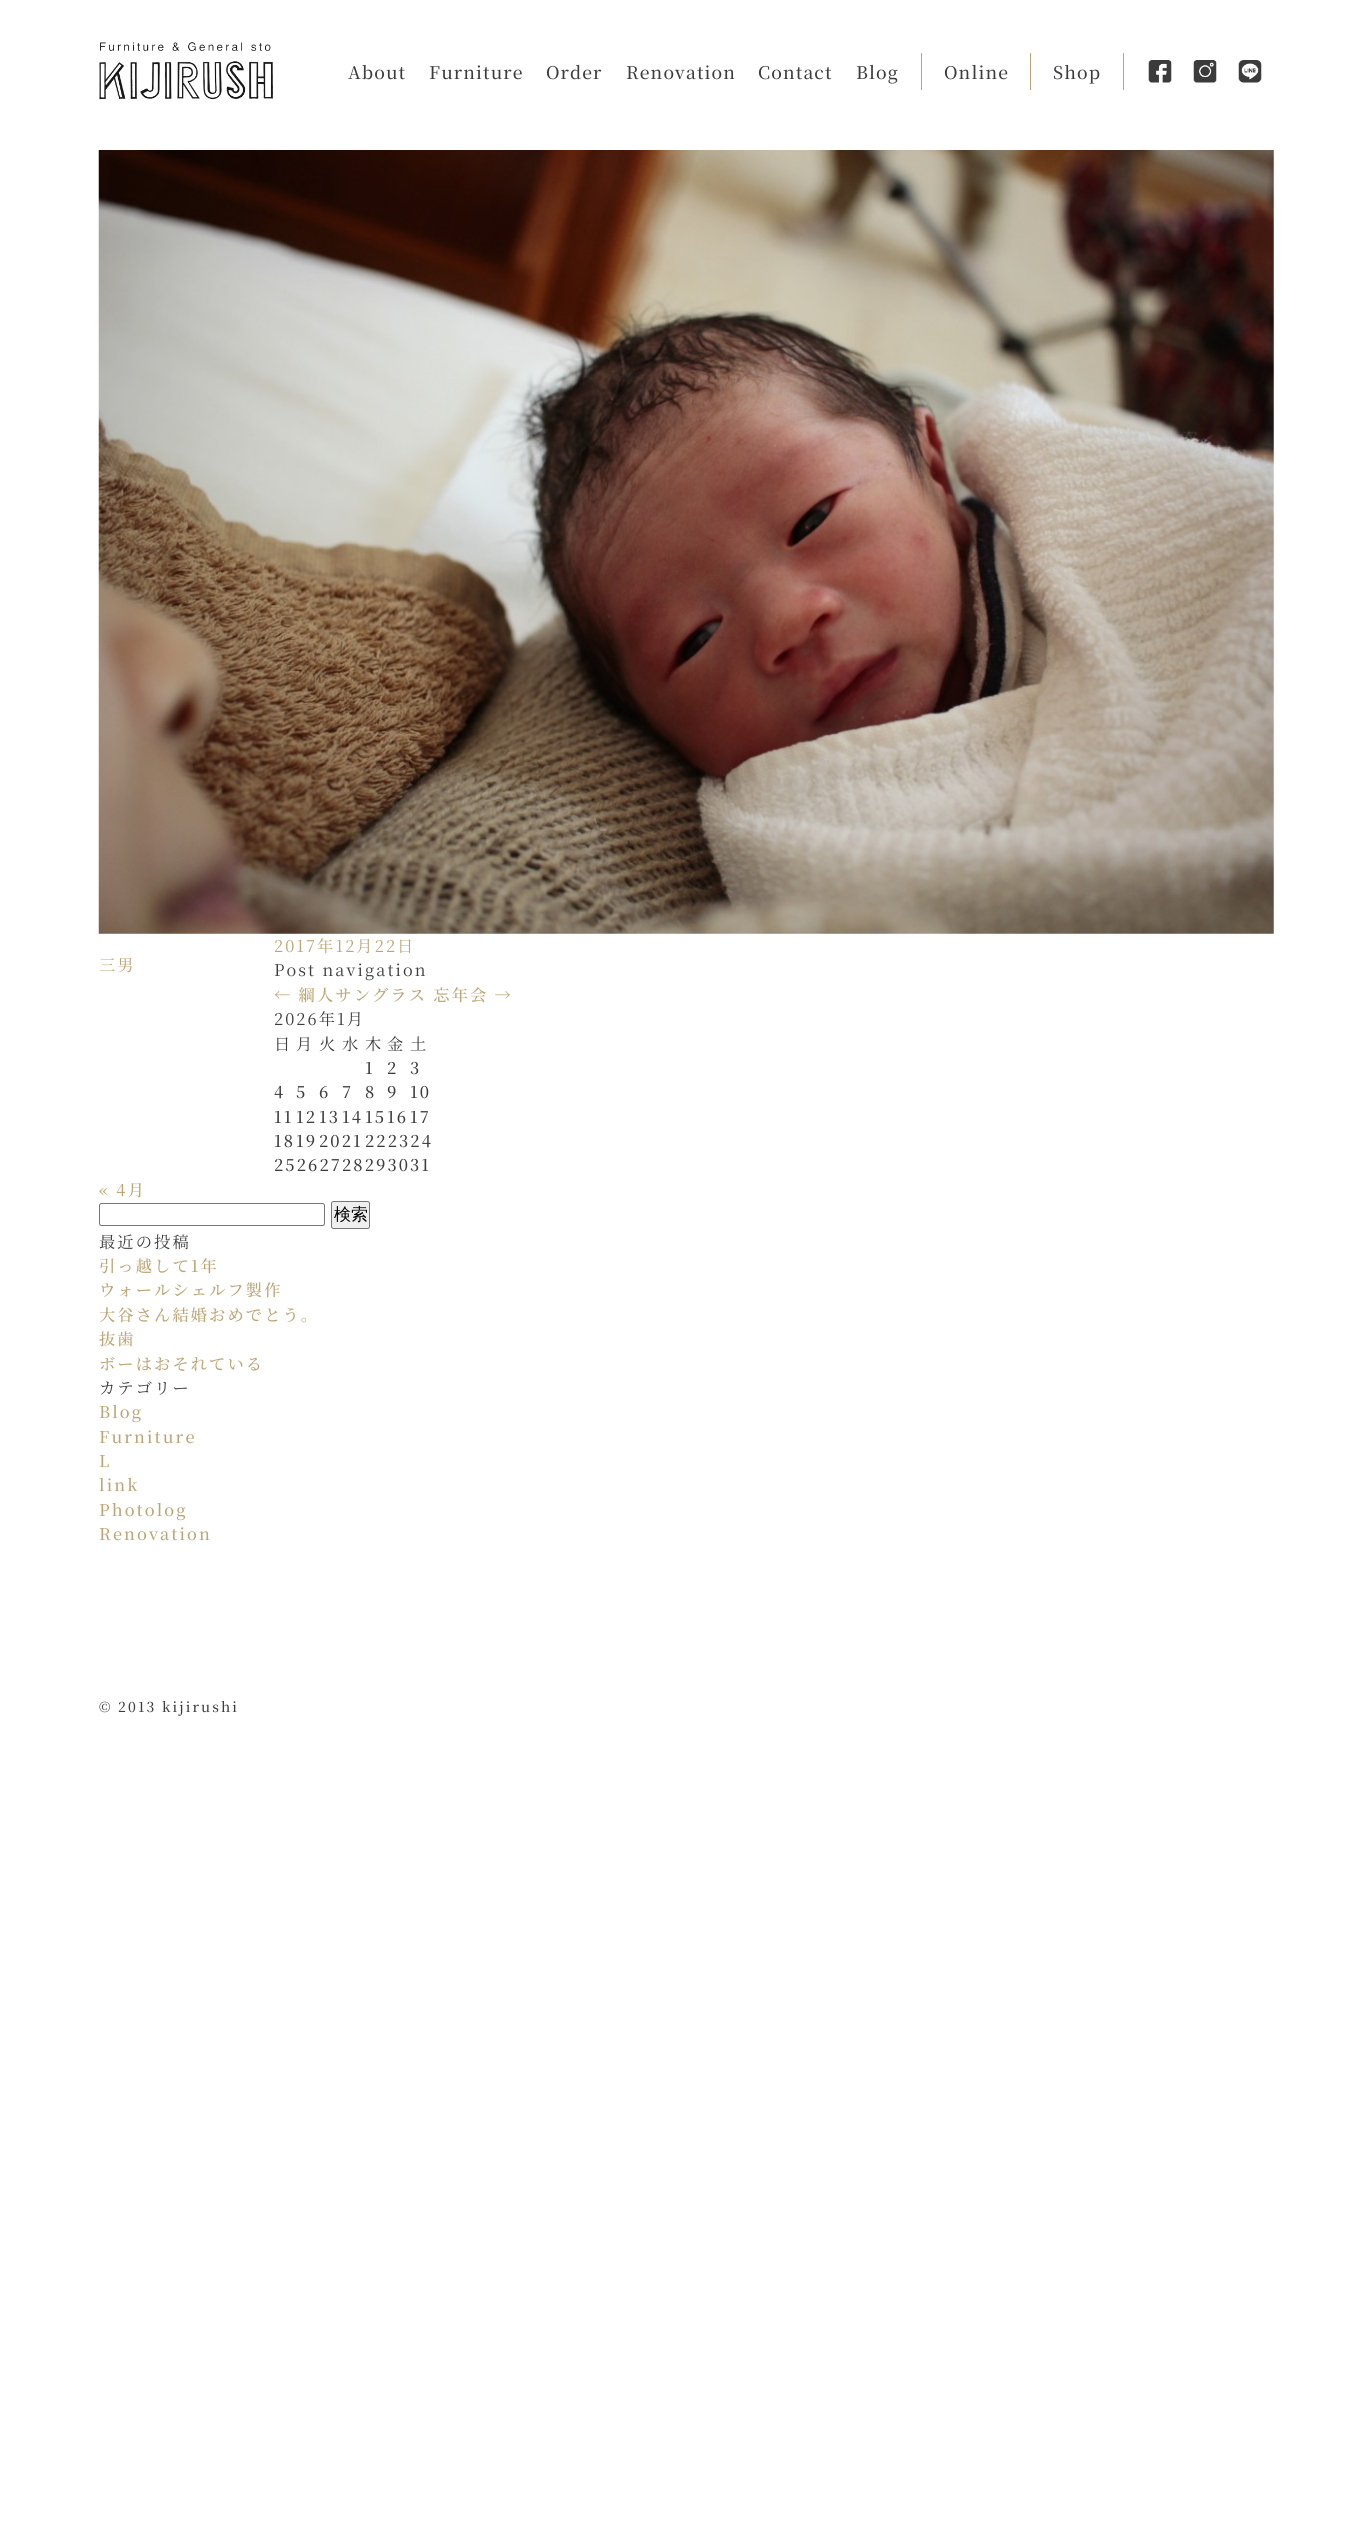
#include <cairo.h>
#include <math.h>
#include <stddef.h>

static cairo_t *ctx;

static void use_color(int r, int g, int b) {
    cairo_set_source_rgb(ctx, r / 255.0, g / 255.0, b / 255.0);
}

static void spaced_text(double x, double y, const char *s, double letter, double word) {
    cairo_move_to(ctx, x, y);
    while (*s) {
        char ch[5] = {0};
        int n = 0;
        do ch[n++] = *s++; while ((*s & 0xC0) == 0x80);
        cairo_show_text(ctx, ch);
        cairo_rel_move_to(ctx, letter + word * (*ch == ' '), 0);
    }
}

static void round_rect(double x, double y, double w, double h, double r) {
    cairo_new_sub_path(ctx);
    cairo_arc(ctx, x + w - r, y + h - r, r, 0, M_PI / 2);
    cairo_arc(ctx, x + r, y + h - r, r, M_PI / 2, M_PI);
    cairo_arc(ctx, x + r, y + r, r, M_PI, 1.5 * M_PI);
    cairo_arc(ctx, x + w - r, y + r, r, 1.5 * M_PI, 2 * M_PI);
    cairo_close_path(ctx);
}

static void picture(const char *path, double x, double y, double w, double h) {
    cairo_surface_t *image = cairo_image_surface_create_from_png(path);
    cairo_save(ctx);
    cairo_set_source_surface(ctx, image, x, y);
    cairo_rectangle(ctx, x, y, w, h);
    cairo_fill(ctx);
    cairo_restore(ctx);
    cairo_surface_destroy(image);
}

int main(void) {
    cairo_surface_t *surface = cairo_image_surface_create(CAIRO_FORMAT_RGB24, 1372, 2537);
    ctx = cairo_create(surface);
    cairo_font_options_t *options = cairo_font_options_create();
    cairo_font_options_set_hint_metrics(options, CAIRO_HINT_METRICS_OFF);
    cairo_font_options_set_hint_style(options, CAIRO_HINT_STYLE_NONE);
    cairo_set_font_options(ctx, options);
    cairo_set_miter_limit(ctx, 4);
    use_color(255, 255, 255);
    cairo_paint(ctx);
    picture("img1.png", 99, 42, 174, 58);
    cairo_select_font_face(ctx, "Noto Serif JP Medium", CAIRO_FONT_SLANT_NORMAL, CAIRO_FONT_WEIGHT_NORMAL);
    cairo_set_font_size(ctx, 17.5);
    use_color(60, 60, 60);
    spaced_text(348, 79, "About", 1.1, 0);
    spaced_text(429, 79, "Furniture", 1.1, 0);
    spaced_text(546, 79, "Order", 1.1, 0);
    spaced_text(626, 79, "Renovation", 1.1, 0);
    spaced_text(758, 79, "Contact", 1.1, 0);
    spaced_text(856, 79, "Blog", 1.1, 0);
    use_color(188, 164, 116);
    cairo_rectangle(ctx, 921, 53, 1, 37);
    cairo_fill(ctx);
    use_color(60, 60, 60);
    spaced_text(944, 79, "Online", 1.1, 0);
    use_color(188, 164, 116);
    cairo_rectangle(ctx, 1123, 53, 1, 37);
    cairo_fill(ctx);
    cairo_rectangle(ctx, 1030, 53, 1, 37);
    cairo_fill(ctx);
    use_color(60, 60, 60);
    spaced_text(1053, 79, "Shop", 1.1, 0);
    picture("img2.png", 1148, 60, 24, 23);
    picture("img3.png", 1193, 60, 24, 23);
    picture("img4.png", 1238, 60, 24, 23);
    picture("img5.png", 98, 150, 1176, 784);
    cairo_select_font_face(ctx, "Noto Serif JP", CAIRO_FONT_SLANT_NORMAL, CAIRO_FONT_WEIGHT_NORMAL);
    cairo_set_font_size(ctx, 16.25);
    use_color(188, 164, 116);
    spaced_text(274, 952, "2017年12月22日", 2.1, 0);
    spaced_text(99, 971, "三男", 2.1, 0);
    use_color(60, 60, 60);
    spaced_text(274, 976, "Post navigation", 2.1, 0);
    cairo_select_font_face(ctx, "Noto Serif JP Medium", CAIRO_FONT_SLANT_NORMAL, CAIRO_FONT_WEIGHT_NORMAL);
    use_color(188, 164, 116);
    spaced_text(274, 1001, "← 綱人サングラス 忘年会 →", 2.1, 0);
    cairo_select_font_face(ctx, "Noto Serif JP", CAIRO_FONT_SLANT_NORMAL, CAIRO_FONT_WEIGHT_NORMAL);
    use_color(60, 60, 60);
    spaced_text(274, 1025, "2026年1月", 2.1, 0);
    spaced_text(274, 1050, "日", 2.1, 0);
    spaced_text(296, 1050, "月", 2.1, 0);
    spaced_text(319, 1050, "火", 2.1, 0);
    spaced_text(342, 1050, "水", 2.1, 0);
    spaced_text(365, 1050, "木", 2.1, 0);
    spaced_text(387, 1050, "金", 2.1, 0);
    spaced_text(410, 1050, "土", 2.1, 0);
    cairo_select_font_face(ctx, "Noto Serif JP Medium", CAIRO_FONT_SLANT_NORMAL, CAIRO_FONT_WEIGHT_NORMAL);
    spaced_text(365, 1074, "1", 2.1, 0);
    spaced_text(387, 1074, "2", 2.1, 0);
    spaced_text(410, 1074, "3", 2.1, 0);
    spaced_text(274, 1098, "4", 2.1, 0);
    spaced_text(296, 1098, "5", 2.1, 0);
    spaced_text(319, 1098, "6", 2.1, 0);
    spaced_text(342, 1098, "7", 2.1, 0);
    spaced_text(365, 1098, "8", 2.1, 0);
    spaced_text(387, 1098, "9", 2.1, 0);
    spaced_text(410, 1098, "10", 2.1, 0);
    spaced_text(274, 1123, "11", 2.1, 0);
    spaced_text(296, 1123, "12", 2.1, 0);
    spaced_text(319, 1123, "13", 2.1, 0);
    spaced_text(342, 1123, "14", 2.1, 0);
    spaced_text(365, 1123, "15", 2.1, 0);
    spaced_text(387, 1123, "16", 2.1, 0);
    spaced_text(410, 1123, "17", 2.1, 0);
    spaced_text(274, 1147, "18", 2.1, 0);
    spaced_text(296, 1147, "19", 2.1, 0);
    spaced_text(319, 1147, "2021", 2.1, 0);
    spaced_text(365, 1147, "222324", 2.1, 0);
    spaced_text(274, 1171, "25262728293031", 2.1, 0);
    use_color(188, 164, 116);
    spaced_text(99, 1196, "« 4月", 2.1, 0);
    round_rect(99.5, 1203.5, 225, 22, 2);
    use_color(118, 118, 118);
    cairo_set_line_width(ctx, 1);
    cairo_stroke(ctx);
    use_color(239, 239, 239);
    round_rect(331.5, 1201.5, 38, 27, 2);
    cairo_fill_preserve(ctx);
    use_color(118, 118, 118);
    cairo_stroke(ctx);
    cairo_select_font_face(ctx, "WenQuanYi Zen Hei Medium", CAIRO_FONT_SLANT_NORMAL, CAIRO_FONT_WEIGHT_NORMAL);
    cairo_set_font_size(ctx, 17);
    use_color(0, 0, 0);
    cairo_move_to(ctx, 334, 1220);
    cairo_show_text(ctx, "検索");
    cairo_select_font_face(ctx, "Noto Serif JP", CAIRO_FONT_SLANT_NORMAL, CAIRO_FONT_WEIGHT_NORMAL);
    cairo_set_font_size(ctx, 16.25);
    use_color(60, 60, 60);
    spaced_text(99, 1248, "最近の投稿", 2.1, 0);
    cairo_select_font_face(ctx, "Noto Serif JP Medium", CAIRO_FONT_SLANT_NORMAL, CAIRO_FONT_WEIGHT_NORMAL);
    use_color(188, 164, 116);
    spaced_text(99, 1272, "引っ越して1年", 2.1, 0);
    spaced_text(99, 1296, "ウォールシェルフ製作", 2.1, 0);
    spaced_text(99, 1321, "大谷さん結婚おめでとう。", 2.1, 0);
    spaced_text(99, 1345, "抜歯", 2.1, 0);
    spaced_text(99, 1370, "ボーはおそれている", 2.1, 0);
    cairo_select_font_face(ctx, "Noto Serif JP", CAIRO_FONT_SLANT_NORMAL, CAIRO_FONT_WEIGHT_NORMAL);
    use_color(60, 60, 60);
    spaced_text(99, 1394, "カテゴリー", 2.1, 0);
    cairo_select_font_face(ctx, "Noto Serif JP Medium", CAIRO_FONT_SLANT_NORMAL, CAIRO_FONT_WEIGHT_NORMAL);
    use_color(188, 164, 116);
    spaced_text(99, 1418, "Blog", 2.1, 0);
    spaced_text(99, 1443, "Furniture", 2.1, 0);
    spaced_text(99, 1467, "L", 2.1, 0);
    spaced_text(99, 1491, "link", 2.1, 0);
    spaced_text(99, 1516, "Photolog", 2.1, 0);
    spaced_text(99, 1540, "Renovation", 2.1, 0);
    cairo_set_font_size(ctx, 13.75);
    use_color(60, 60, 60);
    spaced_text(99, 1712, "© 2013 kijirushi", 2.1, 0);
    cairo_surface_write_to_png(surface, "result.png");
    cairo_font_options_destroy(options);
    cairo_destroy(ctx);
    cairo_surface_destroy(surface);
    return 0;
}
